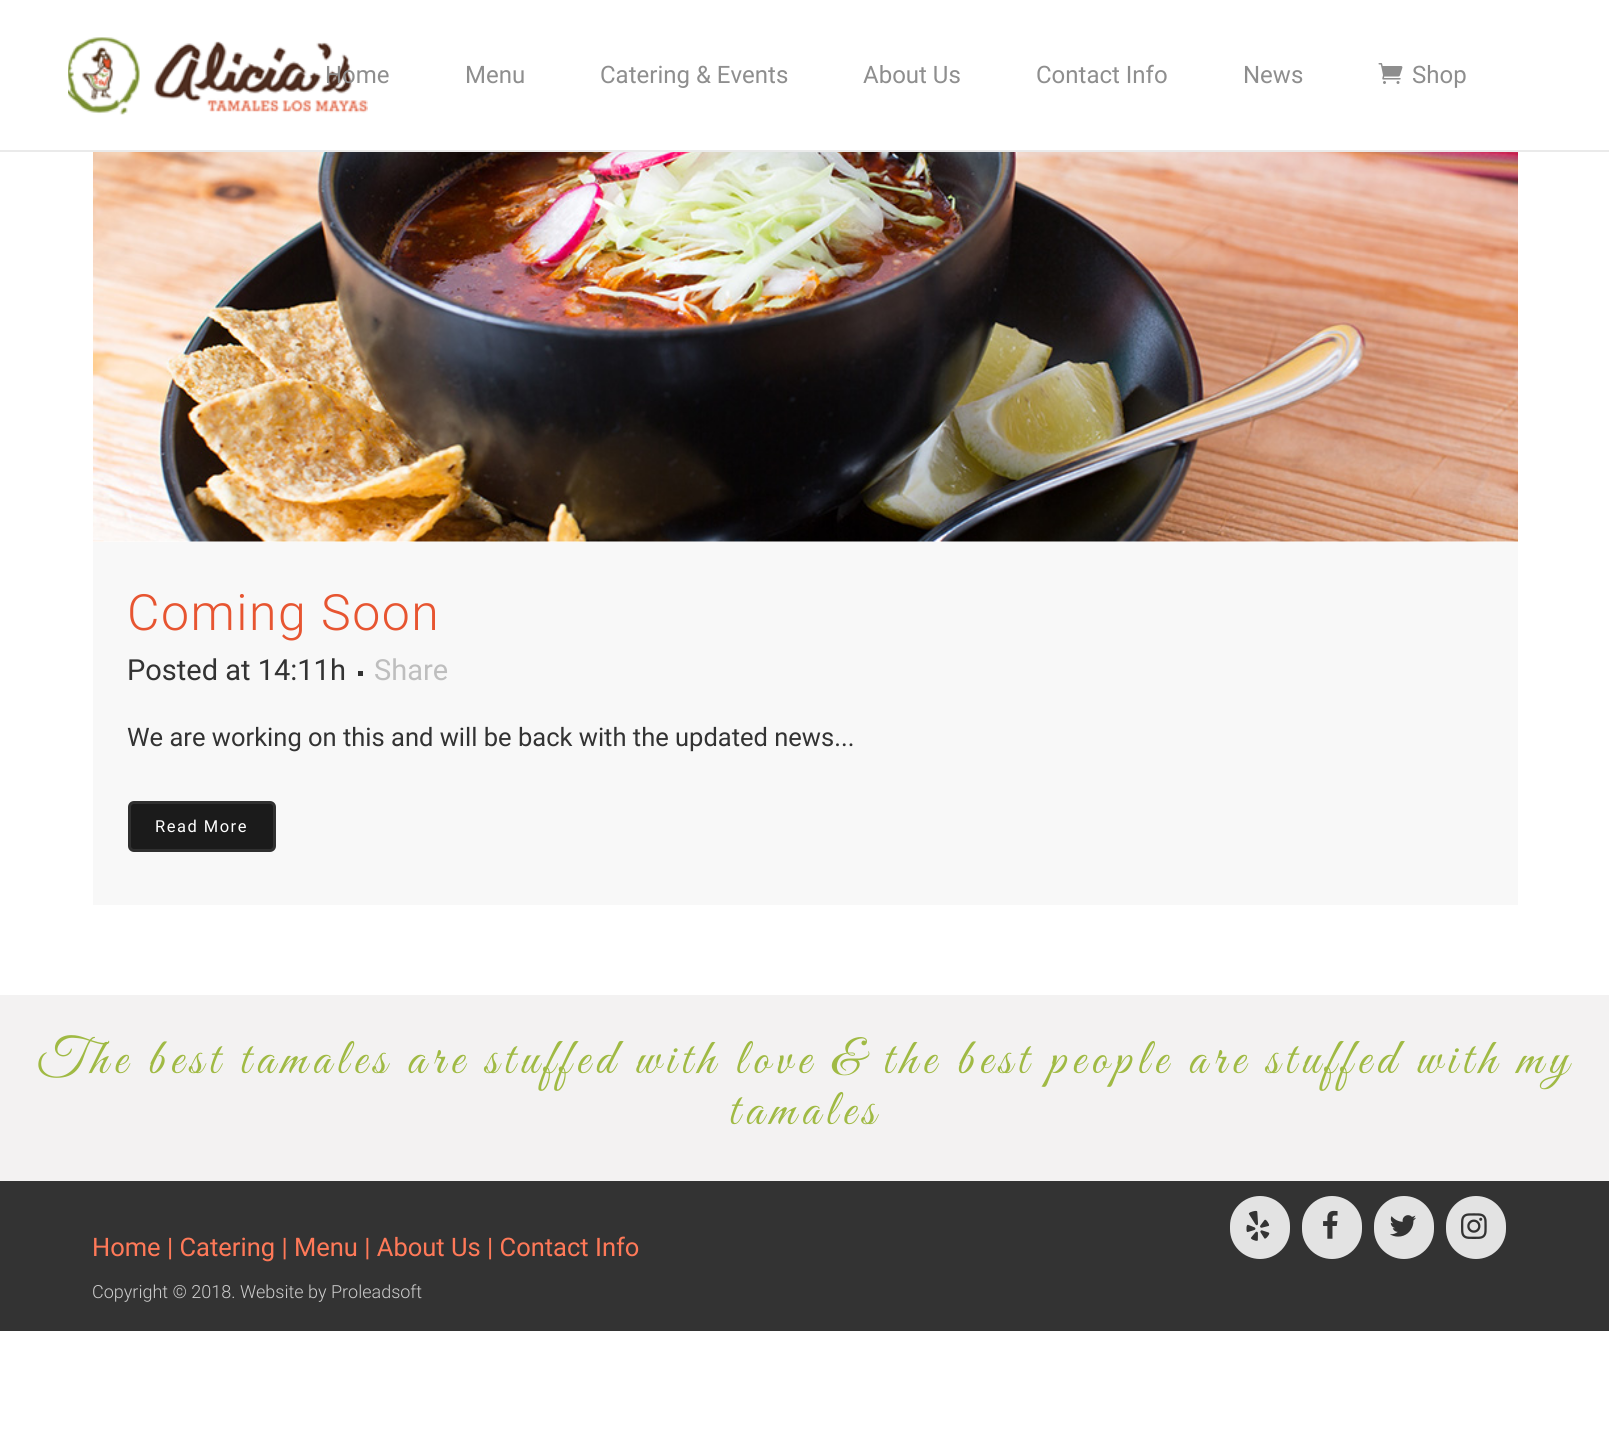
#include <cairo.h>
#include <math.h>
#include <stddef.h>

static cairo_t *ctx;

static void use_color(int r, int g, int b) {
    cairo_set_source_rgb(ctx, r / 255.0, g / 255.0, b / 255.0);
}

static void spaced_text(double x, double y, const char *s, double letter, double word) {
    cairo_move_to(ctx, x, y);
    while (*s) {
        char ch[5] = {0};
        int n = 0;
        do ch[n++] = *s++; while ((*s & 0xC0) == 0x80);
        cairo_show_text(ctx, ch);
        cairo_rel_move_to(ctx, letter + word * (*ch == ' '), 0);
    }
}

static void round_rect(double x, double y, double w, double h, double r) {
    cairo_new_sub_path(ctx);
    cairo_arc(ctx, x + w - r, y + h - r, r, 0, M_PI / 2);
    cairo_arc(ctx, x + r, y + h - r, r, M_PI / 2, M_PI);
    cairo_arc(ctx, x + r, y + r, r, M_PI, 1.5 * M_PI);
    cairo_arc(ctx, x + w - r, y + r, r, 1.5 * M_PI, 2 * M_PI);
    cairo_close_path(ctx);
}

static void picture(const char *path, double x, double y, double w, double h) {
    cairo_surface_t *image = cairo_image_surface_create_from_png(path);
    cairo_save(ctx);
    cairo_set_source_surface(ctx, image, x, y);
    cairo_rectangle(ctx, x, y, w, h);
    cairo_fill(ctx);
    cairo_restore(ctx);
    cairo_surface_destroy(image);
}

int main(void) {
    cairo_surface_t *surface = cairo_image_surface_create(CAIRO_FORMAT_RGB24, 1609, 1438);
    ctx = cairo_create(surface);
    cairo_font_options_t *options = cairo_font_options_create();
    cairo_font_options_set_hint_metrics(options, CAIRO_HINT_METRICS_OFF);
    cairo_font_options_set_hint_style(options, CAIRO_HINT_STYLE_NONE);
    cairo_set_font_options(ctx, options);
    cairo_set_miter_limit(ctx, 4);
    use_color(255, 255, 255);
    cairo_paint(ctx);
    use_color(234, 234, 234);
    cairo_rectangle(ctx, 0, 150, 1609, 2);
    cairo_fill(ctx);
    picture("img1.png", 68, 37, 300, 78);
    cairo_select_font_face(ctx, "Roboto", CAIRO_FONT_SLANT_NORMAL, CAIRO_FONT_WEIGHT_NORMAL);
    cairo_set_font_size(ctx, 24);
    use_color(142, 142, 142);
    cairo_move_to(ctx, 325, 83);
    cairo_show_text(ctx, "Home");
    cairo_move_to(ctx, 465, 83);
    cairo_show_text(ctx, "Menu");
    cairo_move_to(ctx, 600, 83);
    cairo_show_text(ctx, "Catering & Events");
    cairo_move_to(ctx, 863, 83);
    cairo_show_text(ctx, "About Us");
    cairo_move_to(ctx, 1036, 83);
    cairo_show_text(ctx, "Contact Info");
    cairo_move_to(ctx, 1243, 83);
    cairo_show_text(ctx, "News");
    picture("img2.png", 1378, 63, 25, 21);
    cairo_move_to(ctx, 1412, 83);
    cairo_show_text(ctx, "Shop");
    picture("img3.png", 93, 152, 1425, 390);
    use_color(248, 248, 248);
    cairo_rectangle(ctx, 93, 542, 1425, 363);
    cairo_fill(ctx);
    cairo_select_font_face(ctx, "Roboto Light", CAIRO_FONT_SLANT_NORMAL, CAIRO_FONT_WEIGHT_NORMAL);
    cairo_set_font_size(ctx, 50);
    use_color(231, 85, 49);
    spaced_text(127, 630, "Coming Soon", 1.5, 0);
    cairo_select_font_face(ctx, "Roboto", CAIRO_FONT_SLANT_NORMAL, CAIRO_FONT_WEIGHT_NORMAL);
    cairo_set_font_size(ctx, 29);
    use_color(51, 51, 51);
    cairo_move_to(ctx, 127, 680);
    cairo_show_text(ctx, "Posted at 14:11h");
    cairo_rectangle(ctx, 358, 671, 5, 5);
    cairo_fill(ctx);
    use_color(190, 190, 190);
    cairo_move_to(ctx, 374, 680);
    cairo_show_text(ctx, "Share");
    cairo_set_font_size(ctx, 25.5);
    use_color(51, 51, 51);
    cairo_move_to(ctx, 127, 746);
    cairo_show_text(ctx, "We are working on this and will be back with the updated news...");
    use_color(27, 27, 27);
    round_rect(129.5, 802.5, 145, 48, 4.5);
    cairo_fill_preserve(ctx);
    use_color(48, 48, 48);
    cairo_set_line_width(ctx, 3);
    cairo_stroke(ctx);
    cairo_set_font_size(ctx, 16.5);
    use_color(255, 255, 255);
    spaced_text(155, 832, "Read More", 1.5, 0);
    use_color(243, 242, 242);
    cairo_rectangle(ctx, 0, 995, 1609, 186);
    cairo_fill(ctx);
    cairo_select_font_face(ctx, "Great Vibes", CAIRO_FONT_SLANT_NORMAL, CAIRO_FONT_WEIGHT_NORMAL);
    cairo_set_font_size(ctx, 51);
    use_color(160, 186, 68);
    spaced_text(37, 1073, "The best tamales are stuffed with love & the best people are stuffed with my", 6, 0.1);
    spaced_text(729, 1124, "tamales", 6, 0);
    use_color(51, 51, 51);
    cairo_rectangle(ctx, 0, 1181, 1609, 150);
    cairo_fill(ctx);
    use_color(227, 227, 227);
    round_rect(1230, 1196, 60, 63, 30);
    cairo_fill(ctx);
    picture("img4.png", 1246, 1210, 24, 31);
    round_rect(1302, 1196, 60, 63, 30);
    cairo_fill(ctx);
    picture("img5.png", 1323, 1210, 15, 29);
    round_rect(1374, 1196, 60, 63, 30);
    cairo_fill(ctx);
    picture("img6.png", 1390, 1215, 26, 22);
    round_rect(1446, 1196, 60, 63, 30);
    cairo_fill(ctx);
    picture("img7.png", 1461, 1213, 26, 26);
    cairo_select_font_face(ctx, "Roboto", CAIRO_FONT_SLANT_NORMAL, CAIRO_FONT_WEIGHT_NORMAL);
    cairo_set_font_size(ctx, 25.5);
    use_color(255, 121, 88);
    cairo_move_to(ctx, 92, 1256);
    cairo_show_text(ctx, "Home | Catering | Menu | About Us | Contact Info");
    cairo_select_font_face(ctx, "Roboto Light", CAIRO_FONT_SLANT_NORMAL, CAIRO_FONT_WEIGHT_NORMAL);
    cairo_set_font_size(ctx, 18);
    use_color(204, 204, 204);
    cairo_move_to(ctx, 92, 1298);
    cairo_show_text(ctx, "Copyright © 2018. Website by Proleadsoft");
    cairo_surface_write_to_png(surface, "result.png");
    cairo_font_options_destroy(options);
    cairo_destroy(ctx);
    cairo_surface_destroy(surface);
    return 0;
}
